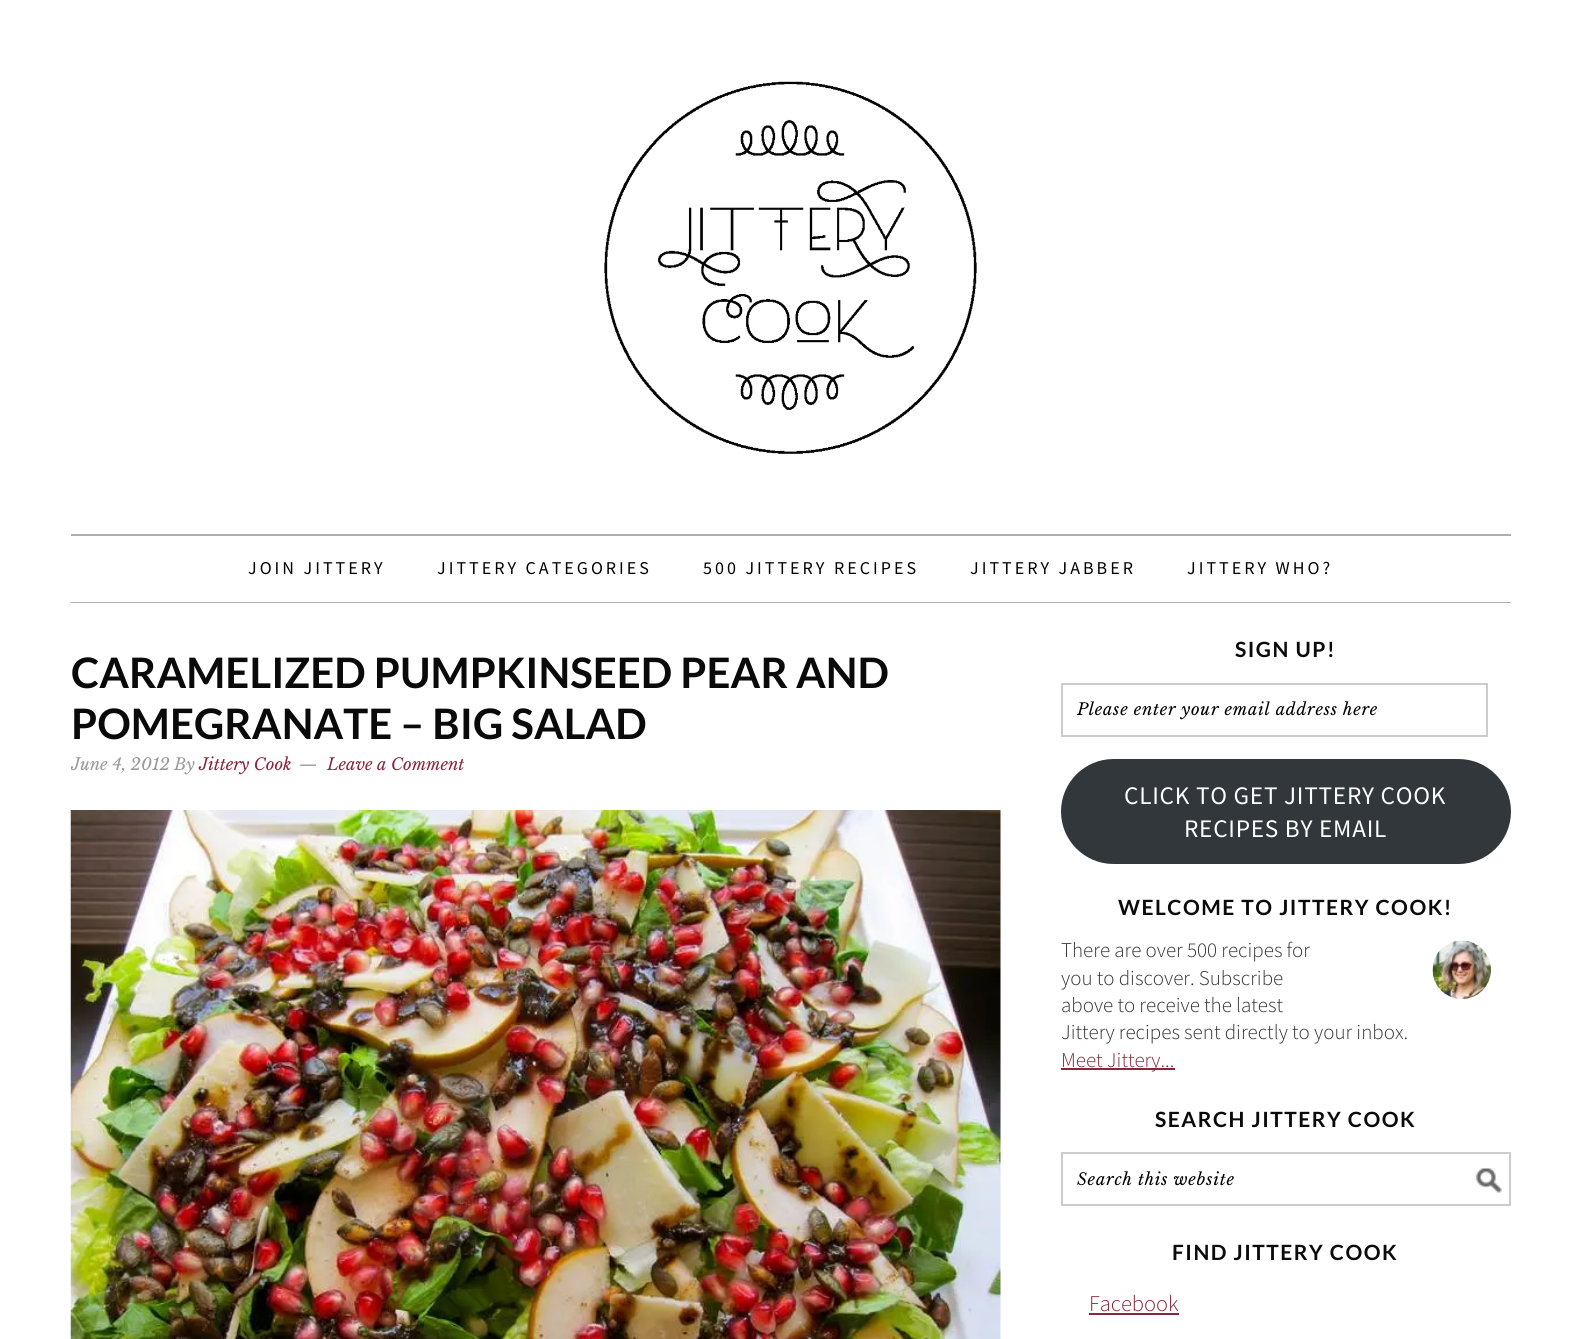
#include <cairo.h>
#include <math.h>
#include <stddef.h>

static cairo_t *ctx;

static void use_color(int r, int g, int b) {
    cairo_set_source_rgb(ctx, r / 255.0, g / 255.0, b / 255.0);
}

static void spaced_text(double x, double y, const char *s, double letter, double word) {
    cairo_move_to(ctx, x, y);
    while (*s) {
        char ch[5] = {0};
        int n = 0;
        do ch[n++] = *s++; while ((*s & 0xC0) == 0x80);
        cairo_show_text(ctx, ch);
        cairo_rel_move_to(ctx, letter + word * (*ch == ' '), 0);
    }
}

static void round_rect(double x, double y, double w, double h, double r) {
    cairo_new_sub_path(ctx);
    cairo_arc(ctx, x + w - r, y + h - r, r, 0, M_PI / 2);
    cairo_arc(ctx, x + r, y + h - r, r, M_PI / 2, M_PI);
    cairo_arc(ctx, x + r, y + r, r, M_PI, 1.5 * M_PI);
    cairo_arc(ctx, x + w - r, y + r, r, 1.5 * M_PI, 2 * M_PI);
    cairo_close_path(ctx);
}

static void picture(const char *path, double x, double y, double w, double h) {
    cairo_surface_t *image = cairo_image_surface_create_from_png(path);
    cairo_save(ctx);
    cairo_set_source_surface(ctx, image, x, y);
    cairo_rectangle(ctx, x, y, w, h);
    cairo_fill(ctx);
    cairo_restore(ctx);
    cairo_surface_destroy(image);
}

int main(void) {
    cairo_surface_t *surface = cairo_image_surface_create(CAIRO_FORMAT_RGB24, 1580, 1339);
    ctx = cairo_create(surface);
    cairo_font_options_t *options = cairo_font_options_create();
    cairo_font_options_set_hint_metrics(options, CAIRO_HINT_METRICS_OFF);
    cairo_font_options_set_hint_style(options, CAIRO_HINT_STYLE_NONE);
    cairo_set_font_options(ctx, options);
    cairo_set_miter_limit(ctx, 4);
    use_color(255, 255, 255);
    cairo_paint(ctx);
    picture("img1.png", 604, 81, 373, 373);
    use_color(175, 175, 175);
    cairo_rectangle(ctx, 71, 534, 1440, 2);
    cairo_fill(ctx);
    cairo_rectangle(ctx, 71, 602, 1440, 1);
    cairo_fill(ctx);
    cairo_select_font_face(ctx, "Source Sans Pro", CAIRO_FONT_SLANT_NORMAL, CAIRO_FONT_WEIGHT_NORMAL);
    cairo_set_font_size(ctx, 18);
    use_color(0, 0, 0);
    spaced_text(248, 574, "JOIN JITTERY", 3, 0);
    spaced_text(437, 574, "JITTERY CATEGORIES", 3, 0);
    spaced_text(703, 574, "500 JITTERY RECIPES", 3, 0);
    spaced_text(970, 574, "JITTERY JABBER", 3, 0);
    spaced_text(1187, 574, "JITTERY WHO?", 3, 0);
    cairo_select_font_face(ctx, "Lato", CAIRO_FONT_SLANT_NORMAL, CAIRO_FONT_WEIGHT_BOLD);
    cairo_set_font_size(ctx, 42);
    use_color(10, 10, 10);
    cairo_move_to(ctx, 71, 688);
    cairo_show_text(ctx, "CARAMELIZED PUMPKINSEED PEAR AND");
    cairo_move_to(ctx, 71, 739);
    cairo_show_text(ctx, "POMEGRANATE – BIG SALAD");
    cairo_save(ctx);
    cairo_rectangle(ctx, 71, 633, 1440, 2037);
    cairo_clip(ctx);
    cairo_select_font_face(ctx, "Libre Baskerville", CAIRO_FONT_SLANT_ITALIC, CAIRO_FONT_WEIGHT_NORMAL);
    cairo_set_font_size(ctx, 16.5);
    use_color(153, 153, 153);
    cairo_move_to(ctx, 71, 770);
    cairo_show_text(ctx, "June 4, 2012");
    cairo_restore(ctx);
    cairo_select_font_face(ctx, "Libre Baskerville", CAIRO_FONT_SLANT_ITALIC, CAIRO_FONT_WEIGHT_NORMAL);
    cairo_set_font_size(ctx, 16.5);
    use_color(153, 153, 153);
    cairo_move_to(ctx, 174, 770);
    cairo_show_text(ctx, "By");
    use_color(135, 39, 57);
    cairo_move_to(ctx, 199, 770);
    cairo_show_text(ctx, "Jittery Cook");
    use_color(153, 153, 153);
    cairo_move_to(ctx, 299, 770);
    cairo_show_text(ctx, "—");
    use_color(135, 39, 57);
    cairo_move_to(ctx, 327, 770);
    cairo_show_text(ctx, "Leave a Comment");
    picture("img2.png", 70, 810, 931, 529);
    cairo_select_font_face(ctx, "Lato", CAIRO_FONT_SLANT_NORMAL, CAIRO_FONT_WEIGHT_BOLD);
    cairo_set_font_size(ctx, 21);
    use_color(10, 10, 10);
    spaced_text(1235, 657, "SIGN UP!", 1.5, 0);
    cairo_rectangle(ctx, 1062, 684, 425, 52);
    use_color(204, 204, 204);
    cairo_stroke(ctx);
    cairo_select_font_face(ctx, "Libre Baskerville", CAIRO_FONT_SLANT_ITALIC, CAIRO_FONT_WEIGHT_NORMAL);
    cairo_set_font_size(ctx, 16.5);
    use_color(0, 0, 0);
    spaced_text(1077, 715, "Please enter your email address here", 0.75, 0);
    use_color(50, 55, 60);
    round_rect(1061, 759, 450, 105, 52.5);
    cairo_fill(ctx);
    cairo_select_font_face(ctx, "Source Sans Pro", CAIRO_FONT_SLANT_NORMAL, CAIRO_FONT_WEIGHT_NORMAL);
    cairo_set_font_size(ctx, 25.25);
    use_color(255, 255, 255);
    spaced_text(1124, 804, "CLICK TO GET JITTERY COOK", 0.75, 0);
    spaced_text(1184, 837, "RECIPES BY EMAIL", 0.75, 0);
    cairo_select_font_face(ctx, "Lato", CAIRO_FONT_SLANT_NORMAL, CAIRO_FONT_WEIGHT_BOLD);
    cairo_set_font_size(ctx, 21);
    use_color(10, 10, 10);
    spaced_text(1118, 915, "WELCOME TO JITTERY COOK!", 1.5, 0);
    cairo_select_font_face(ctx, "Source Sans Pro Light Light", CAIRO_FONT_SLANT_NORMAL, CAIRO_FONT_WEIGHT_NORMAL);
    use_color(51, 51, 51);
    cairo_move_to(ctx, 1061, 957);
    cairo_show_text(ctx, "There are over 500 recipes for");
    picture("img3.png", 1432, 940, 59, 59);
    cairo_move_to(ctx, 1061, 985);
    cairo_show_text(ctx, "you to discover. Subscribe");
    cairo_move_to(ctx, 1061, 1012);
    cairo_show_text(ctx, "above to receive the latest");
    cairo_move_to(ctx, 1061, 1039);
    cairo_show_text(ctx, "Jittery recipes sent directly to your inbox.");
    use_color(135, 39, 57);
    cairo_rectangle(ctx, 1061, 1068, 114, 2);
    cairo_fill(ctx);
    cairo_move_to(ctx, 1061, 1067);
    cairo_show_text(ctx, "Meet Jittery...");
    cairo_select_font_face(ctx, "Lato", CAIRO_FONT_SLANT_NORMAL, CAIRO_FONT_WEIGHT_BOLD);
    use_color(10, 10, 10);
    spaced_text(1155, 1127, "SEARCH JITTERY COOK", 1.5, 0);
    picture("img4.png", 1475, 1168, 27, 25);
    cairo_rectangle(ctx, 1062, 1153, 448, 52);
    use_color(204, 204, 204);
    cairo_stroke(ctx);
    cairo_select_font_face(ctx, "Libre Baskerville", CAIRO_FONT_SLANT_ITALIC, CAIRO_FONT_WEIGHT_NORMAL);
    cairo_set_font_size(ctx, 16.5);
    use_color(0, 0, 0);
    spaced_text(1077, 1185, "Search this website", 0.75, 0);
    cairo_select_font_face(ctx, "Lato", CAIRO_FONT_SLANT_NORMAL, CAIRO_FONT_WEIGHT_BOLD);
    cairo_set_font_size(ctx, 21);
    use_color(10, 10, 10);
    spaced_text(1172, 1260, "FIND JITTERY COOK", 1.5, 0);
    cairo_select_font_face(ctx, "Source Sans Pro Light Light", CAIRO_FONT_SLANT_NORMAL, CAIRO_FONT_WEIGHT_NORMAL);
    cairo_set_font_size(ctx, 22.5);
    use_color(135, 39, 57);
    cairo_move_to(ctx, 1089, 1311);
    cairo_show_text(ctx, "Facebook");
    cairo_rectangle(ctx, 1089, 1313, 90, 2);
    cairo_fill(ctx);
    cairo_surface_write_to_png(surface, "result.png");
    cairo_font_options_destroy(options);
    cairo_destroy(ctx);
    cairo_surface_destroy(surface);
    return 0;
}
